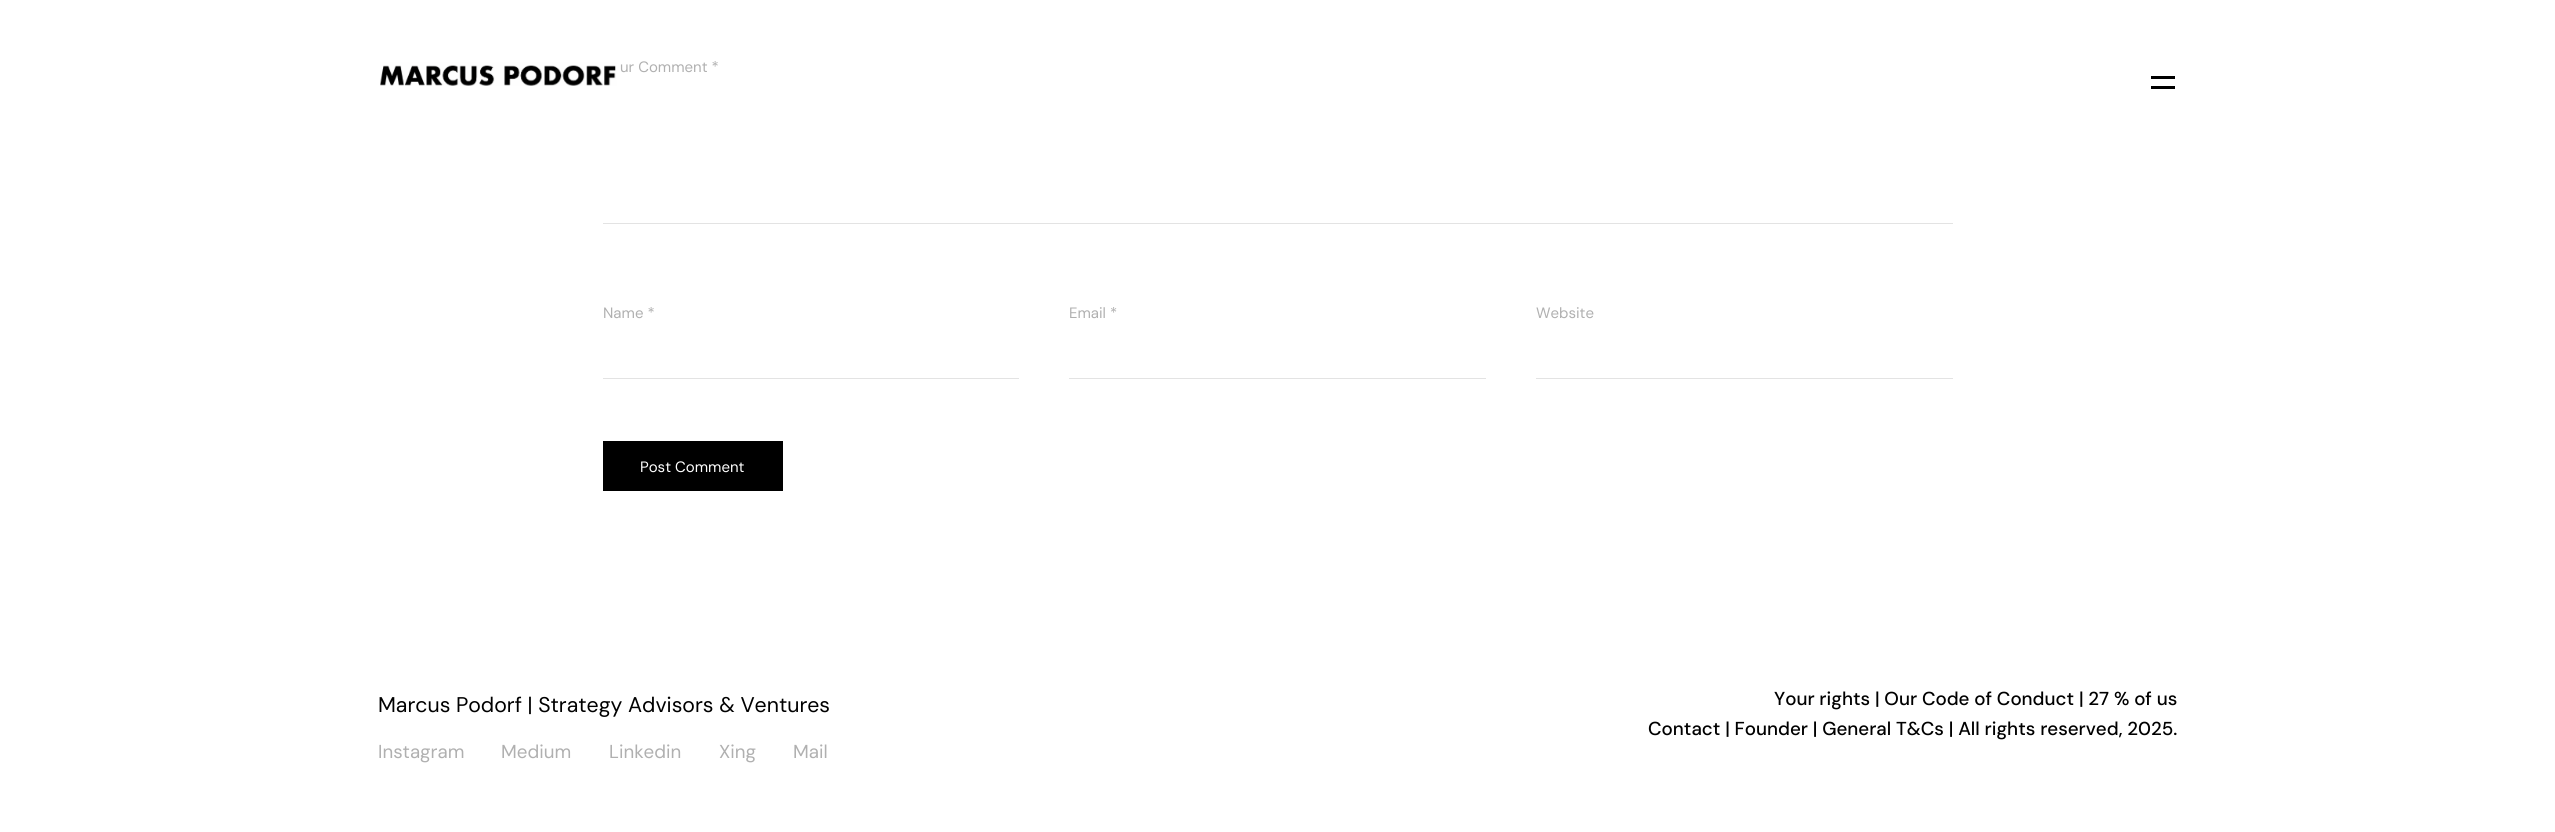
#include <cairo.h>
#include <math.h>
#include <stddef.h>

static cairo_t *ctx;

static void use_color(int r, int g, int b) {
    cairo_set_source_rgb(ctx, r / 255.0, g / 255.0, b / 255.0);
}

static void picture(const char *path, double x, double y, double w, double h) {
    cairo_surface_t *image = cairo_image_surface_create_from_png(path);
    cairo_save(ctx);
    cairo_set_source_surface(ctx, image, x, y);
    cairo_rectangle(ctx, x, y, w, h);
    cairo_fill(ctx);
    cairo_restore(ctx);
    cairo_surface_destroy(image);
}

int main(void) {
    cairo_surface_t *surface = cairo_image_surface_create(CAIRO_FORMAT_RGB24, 2555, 832);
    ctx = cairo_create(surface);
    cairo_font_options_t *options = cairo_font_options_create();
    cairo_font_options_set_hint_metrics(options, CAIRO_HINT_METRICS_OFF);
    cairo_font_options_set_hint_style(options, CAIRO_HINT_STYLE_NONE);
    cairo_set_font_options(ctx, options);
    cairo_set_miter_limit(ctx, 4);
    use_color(255, 255, 255);
    cairo_paint(ctx);
    cairo_select_font_face(ctx, "DM Sans", CAIRO_FONT_SLANT_NORMAL, CAIRO_FONT_WEIGHT_NORMAL);
    cairo_set_font_size(ctx, 15);
    use_color(176, 176, 176);
    cairo_move_to(ctx, 620, 72);
    cairo_show_text(ctx, "ur Comment *");
    use_color(227, 227, 227);
    cairo_rectangle(ctx, 603, 223, 1350, 1);
    cairo_fill(ctx);
    use_color(176, 176, 176);
    cairo_move_to(ctx, 603, 318);
    cairo_show_text(ctx, "Name *");
    use_color(227, 227, 227);
    cairo_rectangle(ctx, 603, 378, 416, 1);
    cairo_fill(ctx);
    use_color(176, 176, 176);
    cairo_move_to(ctx, 1069, 318);
    cairo_show_text(ctx, "Email *");
    use_color(227, 227, 227);
    cairo_rectangle(ctx, 1069, 378, 417, 1);
    cairo_fill(ctx);
    use_color(176, 176, 176);
    cairo_move_to(ctx, 1536, 318);
    cairo_show_text(ctx, "Website");
    use_color(227, 227, 227);
    cairo_rectangle(ctx, 1536, 378, 417, 1);
    cairo_fill(ctx);
    use_color(0, 0, 0);
    cairo_rectangle(ctx, 603, 441, 180, 50);
    cairo_fill(ctx);
    use_color(255, 255, 255);
    cairo_move_to(ctx, 640, 472);
    cairo_show_text(ctx, "Post Comment");
    picture("img1.png", 380, 62, 238, 24);
    use_color(0, 0, 0);
    cairo_rectangle(ctx, 2151, 76, 24, 3);
    cairo_fill(ctx);
    cairo_rectangle(ctx, 2151, 86, 24, 3);
    cairo_fill(ctx);
    cairo_set_font_size(ctx, 21.25);
    cairo_move_to(ctx, 378, 712);
    cairo_show_text(ctx, "Marcus Podorf | Strategy Advisors & Ventures");
    cairo_set_font_size(ctx, 18.75);
    use_color(176, 176, 176);
    cairo_move_to(ctx, 378, 758);
    cairo_show_text(ctx, "Instagram");
    cairo_move_to(ctx, 501, 758);
    cairo_show_text(ctx, "Medium");
    cairo_move_to(ctx, 609, 758);
    cairo_show_text(ctx, "Linkedin");
    cairo_move_to(ctx, 719, 758);
    cairo_show_text(ctx, "Xing");
    cairo_move_to(ctx, 793, 758);
    cairo_show_text(ctx, "Mail");
    cairo_select_font_face(ctx, "DM Sans Medium", CAIRO_FONT_SLANT_NORMAL, CAIRO_FONT_WEIGHT_NORMAL);
    use_color(0, 0, 0);
    cairo_move_to(ctx, 1774, 705);
    cairo_show_text(ctx, "Your rights | Our Code of Conduct | 27 % of us");
    cairo_move_to(ctx, 1648, 735);
    cairo_show_text(ctx, "Contact | Founder | General T&Cs | All rights reserved, 2025.");
    cairo_surface_write_to_png(surface, "result.png");
    cairo_font_options_destroy(options);
    cairo_destroy(ctx);
    cairo_surface_destroy(surface);
    return 0;
}
